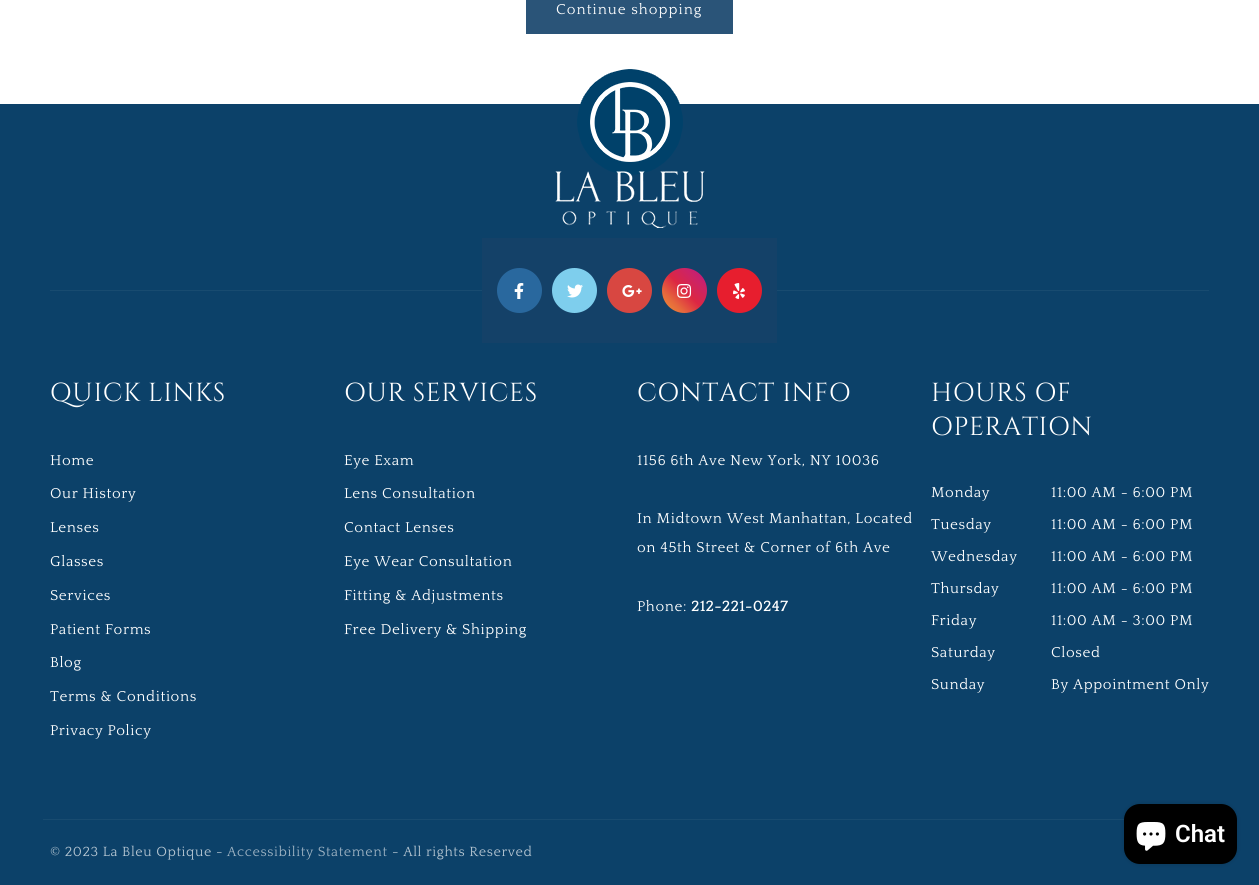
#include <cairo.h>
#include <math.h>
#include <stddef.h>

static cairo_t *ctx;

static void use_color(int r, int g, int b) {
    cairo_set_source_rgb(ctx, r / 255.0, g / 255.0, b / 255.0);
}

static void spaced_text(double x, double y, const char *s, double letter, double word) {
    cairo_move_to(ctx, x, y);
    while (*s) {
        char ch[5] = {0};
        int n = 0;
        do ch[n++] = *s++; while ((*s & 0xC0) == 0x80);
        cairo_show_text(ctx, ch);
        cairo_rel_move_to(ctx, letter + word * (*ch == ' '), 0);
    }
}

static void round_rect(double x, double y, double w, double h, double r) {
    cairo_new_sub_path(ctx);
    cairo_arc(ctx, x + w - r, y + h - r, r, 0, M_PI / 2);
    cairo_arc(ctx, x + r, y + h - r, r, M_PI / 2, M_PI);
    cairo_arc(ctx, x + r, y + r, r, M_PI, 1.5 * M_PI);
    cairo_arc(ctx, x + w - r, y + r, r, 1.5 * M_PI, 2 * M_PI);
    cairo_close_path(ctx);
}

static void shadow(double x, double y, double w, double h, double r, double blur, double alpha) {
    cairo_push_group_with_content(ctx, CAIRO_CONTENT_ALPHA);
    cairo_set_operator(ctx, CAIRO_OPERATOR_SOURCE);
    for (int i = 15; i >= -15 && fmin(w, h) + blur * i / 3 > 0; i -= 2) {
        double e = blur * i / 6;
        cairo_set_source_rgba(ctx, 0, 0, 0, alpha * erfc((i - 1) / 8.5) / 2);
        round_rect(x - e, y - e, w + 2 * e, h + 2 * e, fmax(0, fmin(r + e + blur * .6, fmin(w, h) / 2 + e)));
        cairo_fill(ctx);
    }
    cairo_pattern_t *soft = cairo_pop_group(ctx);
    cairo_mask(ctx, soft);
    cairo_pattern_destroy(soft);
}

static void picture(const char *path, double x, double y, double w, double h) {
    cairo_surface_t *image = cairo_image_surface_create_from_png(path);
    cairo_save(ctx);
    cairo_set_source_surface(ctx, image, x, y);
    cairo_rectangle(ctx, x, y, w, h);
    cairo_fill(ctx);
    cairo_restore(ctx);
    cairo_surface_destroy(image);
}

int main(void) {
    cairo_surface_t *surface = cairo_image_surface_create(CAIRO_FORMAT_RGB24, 1259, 885);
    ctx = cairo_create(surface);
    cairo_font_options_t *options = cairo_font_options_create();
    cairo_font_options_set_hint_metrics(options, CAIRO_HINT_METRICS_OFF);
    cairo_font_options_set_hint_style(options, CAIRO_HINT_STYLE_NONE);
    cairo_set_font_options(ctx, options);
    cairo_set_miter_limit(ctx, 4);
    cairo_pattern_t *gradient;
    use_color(255, 255, 255);
    cairo_paint(ctx);
    use_color(42, 84, 120);
    cairo_rectangle(ctx, 526, 0, 207, 34);
    cairo_fill(ctx);
    cairo_select_font_face(ctx, "Quattrocento", CAIRO_FONT_SLANT_NORMAL, CAIRO_FONT_WEIGHT_NORMAL);
    cairo_set_font_size(ctx, 15);
    use_color(255, 255, 255);
    spaced_text(556, 14, "Continue shopping", 1, 0);
    use_color(12, 65, 105);
    cairo_rectangle(ctx, 0, 104, 1259, 781);
    cairo_fill(ctx);
    picture("img1.png", 555, 69, 150, 159);
    use_color(24, 75, 112);
    cairo_rectangle(ctx, 50, 290, 1159, 1);
    cairo_fill(ctx);
    use_color(20, 65, 104);
    cairo_rectangle(ctx, 482, 238, 295, 105);
    cairo_fill(ctx);
    use_color(41, 104, 158);
    cairo_arc(ctx, 519.5, 290.5, 22.5, 0, 2 * M_PI);
    cairo_fill(ctx);
    picture("img2.png", 514, 283, 10, 16);
    use_color(126, 206, 237);
    cairo_arc(ctx, 574.5, 290.5, 22.5, 0, 2 * M_PI);
    cairo_fill(ctx);
    picture("img3.png", 567, 284, 16, 14);
    use_color(216, 71, 65);
    cairo_arc(ctx, 629.5, 290.5, 22.5, 0, 2 * M_PI);
    cairo_fill(ctx);
    picture("img4.png", 622, 285, 20, 12);
    gradient = cairo_pattern_create_linear(662, 313, 707, 268);
    cairo_pattern_add_color_stop_rgba(gradient, 0, 0.941, 0.58, 0.2, 1);
    cairo_pattern_add_color_stop_rgba(gradient, 0.25, 0.902, 0.408, 0.235, 1);
    cairo_pattern_add_color_stop_rgba(gradient, 0.5, 0.863, 0.153, 0.263, 1);
    cairo_pattern_add_color_stop_rgba(gradient, 0.75, 0.8, 0.137, 0.4, 1);
    cairo_pattern_add_color_stop_rgba(gradient, 1, 0.737, 0.094, 0.533, 1);
    cairo_set_source(ctx, gradient);
    cairo_pattern_destroy(gradient);
    cairo_arc(ctx, 684.5, 290.5, 22.5, 0, 2 * M_PI);
    cairo_fill(ctx);
    picture("img5.png", 677, 284, 15, 14);
    use_color(231, 30, 46);
    cairo_arc(ctx, 739.5, 290.5, 22.5, 0, 2 * M_PI);
    cairo_fill(ctx);
    picture("img6.png", 733, 283, 12, 16);
    cairo_select_font_face(ctx, "Cinzel", CAIRO_FONT_SLANT_NORMAL, CAIRO_FONT_WEIGHT_NORMAL);
    cairo_set_font_size(ctx, 26);
    use_color(255, 255, 255);
    spaced_text(50, 401, "QUICK LINKS", 0.6, 0);
    cairo_select_font_face(ctx, "Quattrocento", CAIRO_FONT_SLANT_NORMAL, CAIRO_FONT_WEIGHT_NORMAL);
    cairo_set_font_size(ctx, 15);
    spaced_text(50, 465, "Home", 0.6, 0);
    spaced_text(50, 498, "Our History", 0.6, 0);
    spaced_text(50, 532, "Lenses", 0.6, 0);
    spaced_text(50, 566, "Glasses", 0.6, 0);
    spaced_text(50, 600, "Services", 0.6, 0);
    spaced_text(50, 634, "Patient Forms", 0.6, 0);
    spaced_text(50, 667, "Blog", 0.6, 0);
    spaced_text(50, 701, "Terms & Conditions", 0.6, 0);
    spaced_text(50, 735, "Privacy Policy", 0.6, 0);
    cairo_select_font_face(ctx, "Cinzel", CAIRO_FONT_SLANT_NORMAL, CAIRO_FONT_WEIGHT_NORMAL);
    cairo_set_font_size(ctx, 26);
    spaced_text(344, 401, "OUR SERVICES", 0.6, 0);
    cairo_select_font_face(ctx, "Quattrocento", CAIRO_FONT_SLANT_NORMAL, CAIRO_FONT_WEIGHT_NORMAL);
    cairo_set_font_size(ctx, 15);
    spaced_text(344, 465, "Eye Exam", 0.6, 0);
    spaced_text(344, 498, "Lens Consultation", 0.6, 0);
    spaced_text(344, 532, "Contact Lenses", 0.6, 0);
    spaced_text(344, 566, "Eye Wear Consultation", 0.6, 0);
    spaced_text(344, 600, "Fitting & Adjustments", 0.6, 0);
    spaced_text(344, 634, "Free Delivery & Shipping", 0.6, 0);
    cairo_select_font_face(ctx, "Cinzel", CAIRO_FONT_SLANT_NORMAL, CAIRO_FONT_WEIGHT_NORMAL);
    cairo_set_font_size(ctx, 26);
    spaced_text(637, 401, "CONTACT INFO", 0.6, 0);
    cairo_select_font_face(ctx, "Quattrocento", CAIRO_FONT_SLANT_NORMAL, CAIRO_FONT_WEIGHT_NORMAL);
    cairo_set_font_size(ctx, 15);
    spaced_text(637, 465, "1156 6th Ave New York, NY 10036", 0.6, 0);
    spaced_text(637, 523, "In Midtown West Manhattan, Located", 0.6, 0);
    spaced_text(637, 552, "on 45th Street & Corner of 6th Ave", 0.6, 0);
    spaced_text(637, 611, "Phone:", 0.6, 0);
    cairo_select_font_face(ctx, "Quattrocento", CAIRO_FONT_SLANT_NORMAL, CAIRO_FONT_WEIGHT_BOLD);
    spaced_text(691, 611, "212-221-0247", 0.6, 0);
    cairo_select_font_face(ctx, "Cinzel", CAIRO_FONT_SLANT_NORMAL, CAIRO_FONT_WEIGHT_NORMAL);
    cairo_set_font_size(ctx, 26);
    spaced_text(931, 401, "HOURS OF", 0.6, 0);
    spaced_text(931, 435, "OPERATION", 0.6, 0);
    cairo_select_font_face(ctx, "Quattrocento", CAIRO_FONT_SLANT_NORMAL, CAIRO_FONT_WEIGHT_NORMAL);
    cairo_set_font_size(ctx, 15);
    spaced_text(931, 497, "Monday", 0.6, 0);
    spaced_text(1051, 497, "11:00 AM - 6:00 PM", 0.6, 0);
    spaced_text(931, 529, "Tuesday", 0.6, 0);
    spaced_text(1051, 529, "11:00 AM - 6:00 PM", 0.6, 0);
    spaced_text(931, 561, "Wednesday", 0.6, 0);
    spaced_text(1051, 561, "11:00 AM - 6:00 PM", 0.6, 0);
    spaced_text(931, 593, "Thursday", 0.6, 0);
    spaced_text(1051, 593, "11:00 AM - 6:00 PM", 0.6, 0);
    spaced_text(931, 625, "Friday", 0.6, 0);
    spaced_text(1051, 625, "11:00 AM - 3:00 PM", 0.6, 0);
    spaced_text(931, 657, "Saturday", 0.6, 0);
    spaced_text(1051, 657, "Closed", 0.6, 0);
    spaced_text(931, 689, "Sunday", 0.6, 0);
    spaced_text(1051, 689, "By Appointment Only", 0.6, 0);
    use_color(24, 75, 112);
    cairo_rectangle(ctx, 43, 819, 1082, 1);
    cairo_fill(ctx);
    cairo_set_font_size(ctx, 14);
    use_color(182, 198, 210);
    spaced_text(50, 856, "© 2023 La Bleu Optique -", 0.6, 0);
    use_color(158, 179, 195);
    spaced_text(227, 856, "Accessibility Statement", 0.6, 0);
    use_color(182, 198, 210);
    spaced_text(392, 856, "- All rights Reserved", 0.6, 0);
    use_color(0, 0, 0);
    shadow(1124, 804, 113, 60, 16, 2.5, 0.15);
    use_color(0, 0, 0);
    round_rect(1124, 804, 113, 60, 16);
    cairo_fill(ctx);
    picture("img7.png", 1136, 822, 30, 29);
    cairo_select_font_face(ctx, "Roboto SemiBold", CAIRO_FONT_SLANT_NORMAL, CAIRO_FONT_WEIGHT_NORMAL);
    cairo_set_font_size(ctx, 24);
    use_color(255, 255, 255);
    cairo_move_to(ctx, 1175, 842);
    cairo_show_text(ctx, "Chat");
    cairo_surface_write_to_png(surface, "result.png");
    cairo_font_options_destroy(options);
    cairo_destroy(ctx);
    cairo_surface_destroy(surface);
    return 0;
}
